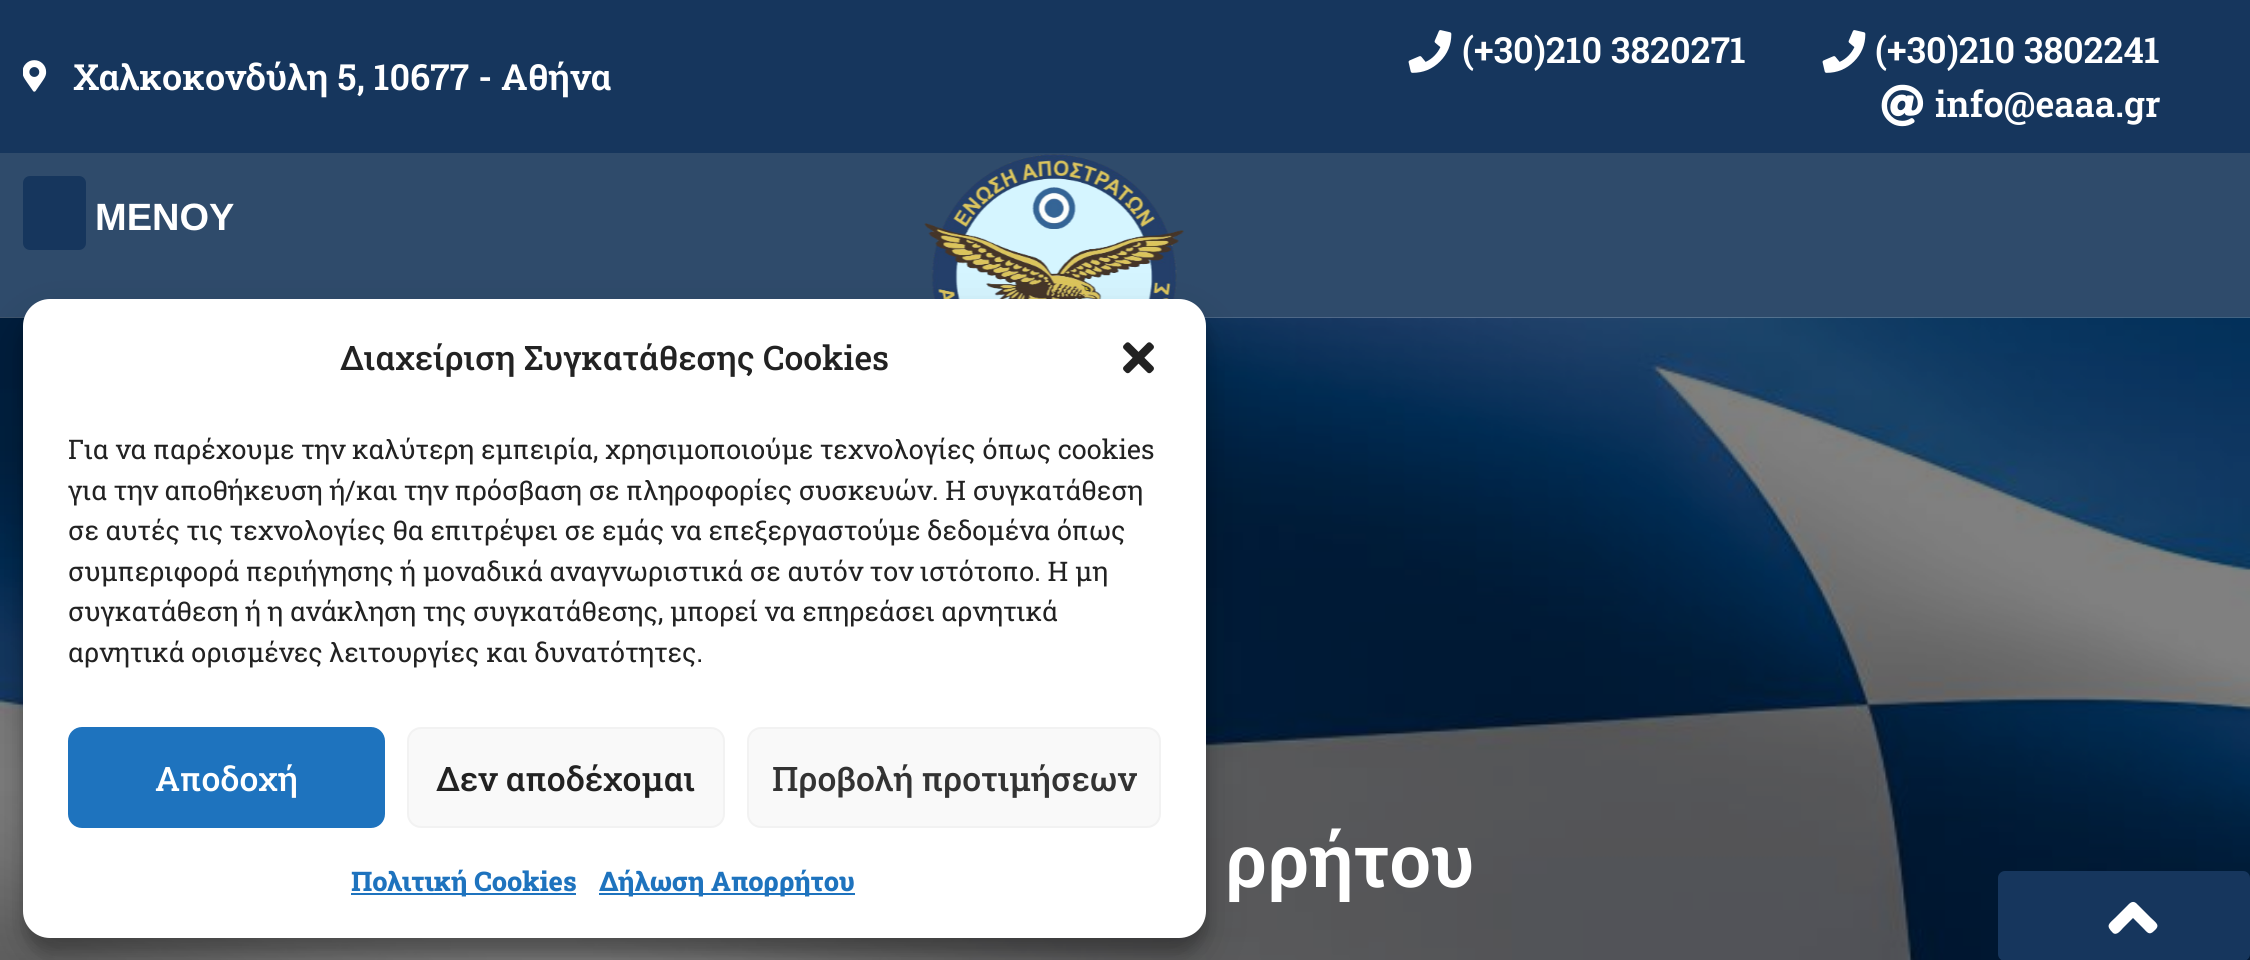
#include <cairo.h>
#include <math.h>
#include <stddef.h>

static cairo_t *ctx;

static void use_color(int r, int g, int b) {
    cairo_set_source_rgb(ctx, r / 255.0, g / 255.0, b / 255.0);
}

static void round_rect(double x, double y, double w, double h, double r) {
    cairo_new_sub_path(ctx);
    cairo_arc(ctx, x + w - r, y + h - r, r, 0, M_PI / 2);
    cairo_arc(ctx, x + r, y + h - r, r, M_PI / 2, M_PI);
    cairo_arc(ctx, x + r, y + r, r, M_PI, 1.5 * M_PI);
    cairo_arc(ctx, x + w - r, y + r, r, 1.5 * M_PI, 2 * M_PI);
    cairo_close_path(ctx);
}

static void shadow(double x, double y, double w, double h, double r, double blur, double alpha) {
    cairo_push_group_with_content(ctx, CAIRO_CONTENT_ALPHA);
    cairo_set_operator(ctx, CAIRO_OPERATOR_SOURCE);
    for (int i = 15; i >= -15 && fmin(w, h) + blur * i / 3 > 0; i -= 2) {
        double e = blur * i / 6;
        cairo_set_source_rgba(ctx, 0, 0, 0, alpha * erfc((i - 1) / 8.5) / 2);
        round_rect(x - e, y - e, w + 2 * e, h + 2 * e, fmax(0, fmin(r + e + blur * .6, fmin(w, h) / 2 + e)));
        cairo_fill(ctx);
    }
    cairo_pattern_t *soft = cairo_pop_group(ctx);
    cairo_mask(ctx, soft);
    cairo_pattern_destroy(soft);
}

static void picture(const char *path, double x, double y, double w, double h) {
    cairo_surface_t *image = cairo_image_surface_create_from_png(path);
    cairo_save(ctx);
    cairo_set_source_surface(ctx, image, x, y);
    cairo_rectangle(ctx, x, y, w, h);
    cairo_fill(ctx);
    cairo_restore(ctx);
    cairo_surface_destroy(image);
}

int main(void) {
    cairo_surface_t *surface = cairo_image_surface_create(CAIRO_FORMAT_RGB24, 2250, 960);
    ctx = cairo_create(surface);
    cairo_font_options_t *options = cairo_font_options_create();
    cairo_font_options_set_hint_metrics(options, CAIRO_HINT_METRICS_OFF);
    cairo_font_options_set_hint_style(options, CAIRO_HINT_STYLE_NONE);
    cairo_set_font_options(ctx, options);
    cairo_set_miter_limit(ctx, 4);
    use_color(255, 255, 255);
    cairo_paint(ctx);
    use_color(22, 54, 93);
    cairo_rectangle(ctx, 0, 0, 2250, 153);
    cairo_fill(ctx);
    picture("img1.png", 23, 60, 24, 32);
    cairo_select_font_face(ctx, "Roboto Slab SemiBold", CAIRO_FONT_SLANT_NORMAL, CAIRO_FONT_WEIGHT_NORMAL);
    cairo_set_font_size(ctx, 36);
    use_color(255, 255, 255);
    cairo_move_to(ctx, 73, 90);
    cairo_show_text(ctx, "Χαλκοκονδύλη 5, 10677 - Αθήνα");
    picture("img2.png", 1408, 30, 44, 43);
    cairo_move_to(ctx, 1462, 63);
    cairo_show_text(ctx, "(+30)210 3820271");
    picture("img2.png", 1822, 30, 44, 43);
    cairo_move_to(ctx, 1875, 63);
    cairo_show_text(ctx, "(+30)210 3802241");
    picture("img3.png", 1881, 84, 43, 43);
    cairo_move_to(ctx, 1935, 117);
    cairo_show_text(ctx, "info@eaaa.gr");
    use_color(47, 75, 107);
    cairo_rectangle(ctx, 0, 153, 2250, 164);
    cairo_fill(ctx);
    use_color(22, 54, 93);
    round_rect(23, 176, 63, 74, 7);
    cairo_fill(ctx);
    cairo_select_font_face(ctx, "Liberation Sans", CAIRO_FONT_SLANT_NORMAL, CAIRO_FONT_WEIGHT_BOLD);
    cairo_set_font_size(ctx, 38);
    use_color(255, 255, 255);
    cairo_move_to(ctx, 95, 230);
    cairo_show_text(ctx, "ΜΕΝΟΥ");
    picture("img4.png", 924, 154, 260, 145);
    picture("img6.png", 0, 317, 2250, 643);
    use_color(0, 0, 0);
    shadow(23, 313, 1183, 639, 27, 7, 0.23);
    shadow(23, 322, 1183, 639, 27, 22.5, 0.19);
    use_color(255, 255, 255);
    round_rect(23, 299, 1183, 639, 27);
    cairo_fill(ctx);
    cairo_select_font_face(ctx, "Roboto Slab Medium", CAIRO_FONT_SLANT_NORMAL, CAIRO_FONT_WEIGHT_NORMAL);
    cairo_set_font_size(ctx, 33.75);
    use_color(34, 34, 34);
    cairo_move_to(ctx, 340, 370);
    cairo_show_text(ctx, "Διαχείριση Συγκατάθεσης Cookies");
    picture("img5.png", 1123, 342, 31, 32);
    cairo_select_font_face(ctx, "Roboto Slab", CAIRO_FONT_SLANT_NORMAL, CAIRO_FONT_WEIGHT_NORMAL);
    cairo_set_font_size(ctx, 27);
    cairo_move_to(ctx, 68, 459);
    cairo_show_text(ctx, "Για να παρέχουμε την καλύτερη εμπειρία, χρησιμοποιούμε τεχνολογίες όπως cookies");
    cairo_move_to(ctx, 68, 500);
    cairo_show_text(ctx, "για την αποθήκευση ή/και την πρόσβαση σε πληροφορίες συσκευών. Η συγκατάθεση");
    cairo_move_to(ctx, 68, 540);
    cairo_show_text(ctx, "σε αυτές τις τεχνολογίες θα επιτρέψει σε εμάς να επεξεργαστούμε δεδομένα όπως");
    cairo_move_to(ctx, 68, 581);
    cairo_show_text(ctx, "συμπεριφορά περιήγησης ή μοναδικά αναγνωριστικά σε αυτόν τον ιστότοπο. Η μη");
    cairo_move_to(ctx, 68, 621);
    cairo_show_text(ctx, "συγκατάθεση ή η ανάκληση της συγκατάθεσης, μπορεί να επηρεάσει αρνητικά");
    cairo_move_to(ctx, 68, 662);
    cairo_show_text(ctx, "αρνητικά ορισμένες λειτουργίες και δυνατότητες.");
    use_color(30, 115, 190);
    round_rect(69, 728, 315, 99, 13);
    cairo_fill_preserve(ctx);
    cairo_stroke(ctx);
    cairo_select_font_face(ctx, "Roboto Slab Medium", CAIRO_FONT_SLANT_NORMAL, CAIRO_FONT_WEIGHT_NORMAL);
    cairo_set_font_size(ctx, 33.75);
    use_color(255, 255, 255);
    cairo_move_to(ctx, 155, 791);
    cairo_show_text(ctx, "Αποδοχή");
    use_color(249, 249, 249);
    round_rect(408, 728, 316, 99, 13);
    cairo_fill_preserve(ctx);
    use_color(242, 242, 242);
    cairo_stroke(ctx);
    use_color(34, 34, 34);
    cairo_move_to(ctx, 436, 791);
    cairo_show_text(ctx, "Δεν αποδέχομαι");
    use_color(249, 249, 249);
    round_rect(748, 728, 412, 99, 13);
    cairo_fill_preserve(ctx);
    use_color(242, 242, 242);
    cairo_stroke(ctx);
    use_color(51, 51, 51);
    cairo_move_to(ctx, 772, 791);
    cairo_show_text(ctx, "Προβολή προτιμήσεων");
    use_color(30, 115, 190);
    cairo_rectangle(ctx, 351, 893, 225, 2);
    cairo_fill(ctx);
    cairo_select_font_face(ctx, "Roboto Slab ExtraBold", CAIRO_FONT_SLANT_NORMAL, CAIRO_FONT_WEIGHT_NORMAL);
    cairo_set_font_size(ctx, 27);
    cairo_move_to(ctx, 351, 891);
    cairo_show_text(ctx, "Πολιτική Cookies");
    cairo_rectangle(ctx, 599, 893, 256, 2);
    cairo_fill(ctx);
    cairo_move_to(ctx, 599, 891);
    cairo_show_text(ctx, "Δήλωση Απορρήτου");
    cairo_select_font_face(ctx, "Roboto Slab SemiBold", CAIRO_FONT_SLANT_NORMAL, CAIRO_FONT_WEIGHT_NORMAL);
    cairo_set_font_size(ctx, 74);
    use_color(255, 255, 255);
    cairo_move_to(ctx, 1225, 887);
    cairo_show_text(ctx, "ρρήτου");
    use_color(22, 54, 93);
    round_rect(1998, 871, 252, 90, 7);
    cairo_fill(ctx);
    use_color(255, 255, 255);
    cairo_new_path(ctx);
    cairo_move_to(ctx, 2136, 903);
    cairo_line_to(ctx, 2150, 917);
    cairo_curve_to(ctx, 2156, 923, 2161, 925, 2154, 931);
    cairo_curve_to(ctx, 2149, 936, 2147, 932, 2143, 928);
    cairo_line_to(ctx, 2133, 918);
    cairo_line_to(ctx, 2123, 928);
    cairo_curve_to(ctx, 2121, 930, 2117, 936, 2113, 933);
    cairo_curve_to(ctx, 2105, 925, 2109, 924, 2116, 917);
    cairo_line_to(ctx, 2127, 906);
    cairo_curve_to(ctx, 2129, 904, 2132, 900, 2136, 903);
    cairo_close_path(ctx);
    cairo_fill(ctx);
    cairo_surface_write_to_png(surface, "result.png");
    cairo_font_options_destroy(options);
    cairo_destroy(ctx);
    cairo_surface_destroy(surface);
    return 0;
}
